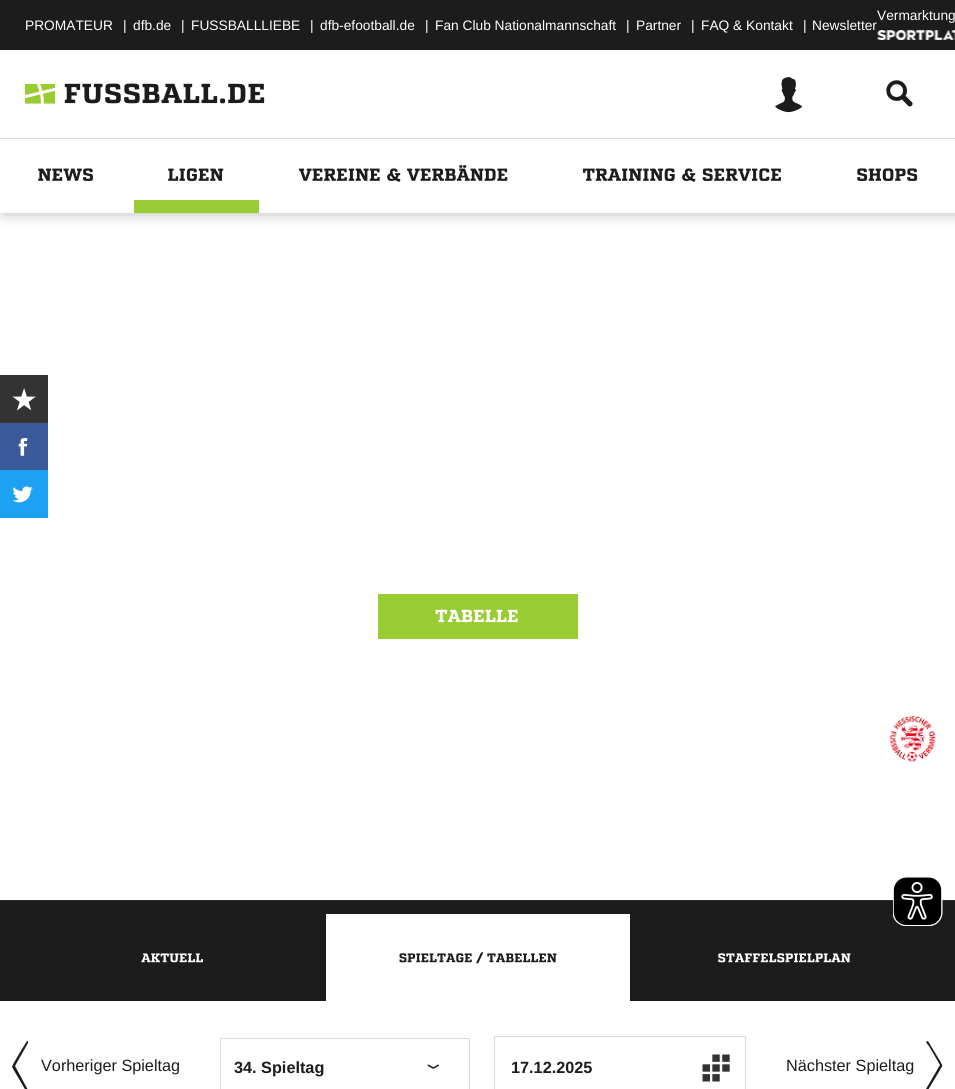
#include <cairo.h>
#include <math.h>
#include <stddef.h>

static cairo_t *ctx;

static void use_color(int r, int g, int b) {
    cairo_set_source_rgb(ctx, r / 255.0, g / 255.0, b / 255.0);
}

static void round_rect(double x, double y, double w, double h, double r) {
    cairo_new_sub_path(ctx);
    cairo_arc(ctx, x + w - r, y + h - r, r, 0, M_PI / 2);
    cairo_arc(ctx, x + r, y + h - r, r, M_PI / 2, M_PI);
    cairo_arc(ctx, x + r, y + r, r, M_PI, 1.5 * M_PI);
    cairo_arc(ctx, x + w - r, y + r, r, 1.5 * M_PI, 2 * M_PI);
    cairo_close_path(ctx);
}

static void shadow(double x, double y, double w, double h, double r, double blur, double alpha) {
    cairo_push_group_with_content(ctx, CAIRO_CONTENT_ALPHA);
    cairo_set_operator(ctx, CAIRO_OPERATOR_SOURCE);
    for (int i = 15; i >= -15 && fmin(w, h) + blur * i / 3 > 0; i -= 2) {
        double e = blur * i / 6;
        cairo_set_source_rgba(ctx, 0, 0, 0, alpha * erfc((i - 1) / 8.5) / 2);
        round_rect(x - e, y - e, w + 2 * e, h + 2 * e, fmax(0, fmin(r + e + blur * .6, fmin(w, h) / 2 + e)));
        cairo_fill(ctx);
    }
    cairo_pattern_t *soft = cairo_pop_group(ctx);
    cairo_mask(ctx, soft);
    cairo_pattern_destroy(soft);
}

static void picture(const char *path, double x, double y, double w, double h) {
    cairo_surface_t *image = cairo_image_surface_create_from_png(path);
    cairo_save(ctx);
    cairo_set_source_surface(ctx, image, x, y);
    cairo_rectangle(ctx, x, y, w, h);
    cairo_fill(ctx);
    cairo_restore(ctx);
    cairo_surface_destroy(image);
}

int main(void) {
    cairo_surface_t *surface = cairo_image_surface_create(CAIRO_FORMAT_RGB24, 955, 1089);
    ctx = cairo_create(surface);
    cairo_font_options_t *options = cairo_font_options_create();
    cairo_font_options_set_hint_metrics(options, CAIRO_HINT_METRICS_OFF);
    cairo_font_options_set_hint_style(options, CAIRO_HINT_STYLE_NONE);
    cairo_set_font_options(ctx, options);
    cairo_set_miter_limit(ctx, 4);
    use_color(255, 255, 255);
    cairo_paint(ctx);
    use_color(51, 51, 51);
    shadow(3, 3, 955, 212, 0, 6, 0.3);
    use_color(255, 255, 255);
    cairo_rectangle(ctx, 0, 50, 955, 163);
    cairo_fill(ctx);
    use_color(28, 28, 28);
    cairo_rectangle(ctx, 0, 0, 955, 50);
    cairo_fill(ctx);
    cairo_select_font_face(ctx, "Liberation Sans", CAIRO_FONT_SLANT_NORMAL, CAIRO_FONT_WEIGHT_NORMAL);
    cairo_set_font_size(ctx, 13.75);
    use_color(255, 255, 255);
    cairo_move_to(ctx, 877, 20);
    cairo_show_text(ctx, "Vermarktung");
    cairo_move_to(ctx, 812, 30);
    cairo_show_text(ctx, "Newsletter");
    picture("img1.png", 877, 30, 78, 10);
    cairo_move_to(ctx, 25, 30);
    cairo_show_text(ctx, "PROMATEUR");
    cairo_move_to(ctx, 123, 30);
    cairo_show_text(ctx, "|");
    cairo_move_to(ctx, 133, 30);
    cairo_show_text(ctx, "dfb.de");
    cairo_move_to(ctx, 181, 30);
    cairo_show_text(ctx, "|");
    cairo_move_to(ctx, 191, 30);
    cairo_show_text(ctx, "FUSSBALLLIEBE");
    cairo_move_to(ctx, 310, 30);
    cairo_show_text(ctx, "|");
    cairo_move_to(ctx, 320, 30);
    cairo_show_text(ctx, "dfb-efootball.de");
    cairo_move_to(ctx, 425, 30);
    cairo_show_text(ctx, "|");
    cairo_move_to(ctx, 435, 30);
    cairo_show_text(ctx, "Fan Club Nationalmannschaft");
    cairo_move_to(ctx, 626, 30);
    cairo_show_text(ctx, "|");
    cairo_move_to(ctx, 636, 30);
    cairo_show_text(ctx, "Partner");
    cairo_move_to(ctx, 691, 30);
    cairo_show_text(ctx, "|");
    cairo_move_to(ctx, 701, 30);
    cairo_show_text(ctx, "FAQ & Kontakt");
    cairo_move_to(ctx, 803, 30);
    cairo_show_text(ctx, "|");
    picture("img2.png", 25, 84, 30, 20);
    picture("img3.png", 64, 83, 201, 21);
    picture("img4.png", 775, 77, 28, 36);
    picture("img5.png", 886, 80, 27, 27);
    use_color(219, 219, 219);
    cairo_rectangle(ctx, 0, 138, 955, 1);
    cairo_fill(ctx);
    picture("img6.png", 38, 168, 55, 13);
    use_color(153, 204, 51);
    cairo_rectangle(ctx, 134, 200, 125, 13);
    cairo_fill(ctx);
    picture("img7.png", 168, 168, 56, 13);
    picture("img8.png", 298, 165, 210, 17);
    picture("img9.png", 583, 168, 198, 14);
    picture("img10.png", 857, 168, 61, 13);
    use_color(51, 51, 51);
    cairo_rectangle(ctx, 0, 375, 48, 48);
    cairo_fill(ctx);
    picture("img11.png", 12, 388, 24, 23);
    use_color(59, 89, 152);
    cairo_rectangle(ctx, 0, 423, 48, 47);
    cairo_fill(ctx);
    picture("img12.png", 18, 438, 10, 18);
    use_color(29, 161, 242);
    cairo_rectangle(ctx, 0, 470, 48, 48);
    cairo_fill(ctx);
    picture("img13.png", 12, 486, 21, 17);
    use_color(51, 51, 51);
    cairo_rectangle(ctx, 0, 900, 955, 1);
    cairo_fill(ctx);
    use_color(28, 28, 28);
    cairo_rectangle(ctx, 0, 901, 955, 100);
    cairo_fill(ctx);
    picture("img14.png", 893, 876, 50, 50);
    use_color(153, 204, 51);
    cairo_rectangle(ctx, 378, 594, 200, 45);
    cairo_fill(ctx);
    picture("img15.png", 435, 609, 83, 14);
    picture("img16.png", 889, 716, 47, 46);
    picture("img17.png", 141, 953, 62, 10);
    use_color(255, 255, 255);
    cairo_rectangle(ctx, 326, 914, 304, 87);
    cairo_fill(ctx);
    picture("img18.png", 399, 952, 158, 12);
    picture("img19.png", 718, 953, 133, 10);
    use_color(28, 28, 28);
    cairo_new_path(ctx);
    cairo_move_to(ctx, 28, 1043);
    cairo_line_to(ctx, 15, 1066);
    cairo_line_to(ctx, 28, 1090);
    cairo_curve_to(ctx, 28, 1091, 27, 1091, 26, 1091);
    cairo_line_to(ctx, 12, 1067);
    cairo_curve_to(ctx, 12, 1065, 25, 1044, 27, 1041);
    cairo_line_to(ctx, 28, 1041);
    cairo_curve_to(ctx, 28, 1042, 28, 1042, 28, 1043);
    cairo_close_path(ctx);
    cairo_fill(ctx);
    cairo_set_font_size(ctx, 16.25);
    cairo_move_to(ctx, 41, 1071);
    cairo_show_text(ctx, "Vorheriger Spieltag");
    cairo_rectangle(ctx, 220.5, 1038.5, 249, 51);
    use_color(219, 219, 219);
    cairo_set_line_width(ctx, 1);
    cairo_stroke(ctx);
    cairo_select_font_face(ctx, "Liberation Sans", CAIRO_FONT_SLANT_NORMAL, CAIRO_FONT_WEIGHT_BOLD);
    use_color(28, 28, 28);
    cairo_move_to(ctx, 234, 1073);
    cairo_show_text(ctx, "34. Spieltag");
    picture("img20.png", 427, 1064, 12, 5);
    cairo_rectangle(ctx, 494.5, 1036.5, 251, 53);
    use_color(219, 219, 219);
    cairo_stroke(ctx);
    use_color(28, 28, 28);
    cairo_move_to(ctx, 511, 1073);
    cairo_show_text(ctx, "17.12.2025");
    picture("img21.png", 702, 1054, 28, 28);
    cairo_select_font_face(ctx, "Liberation Sans", CAIRO_FONT_SLANT_NORMAL, CAIRO_FONT_WEIGHT_NORMAL);
    cairo_move_to(ctx, 786, 1071);
    cairo_show_text(ctx, "Nächster Spieltag");
    cairo_new_path(ctx);
    cairo_move_to(ctx, 926, 1089);
    cairo_line_to(ctx, 940, 1065);
    cairo_line_to(ctx, 929, 1046);
    cairo_curve_to(ctx, 928, 1045, 924, 1041, 928, 1041);
    cairo_line_to(ctx, 940, 1061);
    cairo_curve_to(ctx, 943, 1067, 943, 1064, 940, 1070);
    cairo_line_to(ctx, 928, 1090);
    cairo_curve_to(ctx, 926, 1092, 926, 1089, 926, 1089);
    cairo_close_path(ctx);
    cairo_fill(ctx);
    cairo_surface_write_to_png(surface, "result.png");
    cairo_font_options_destroy(options);
    cairo_destroy(ctx);
    cairo_surface_destroy(surface);
    return 0;
}
